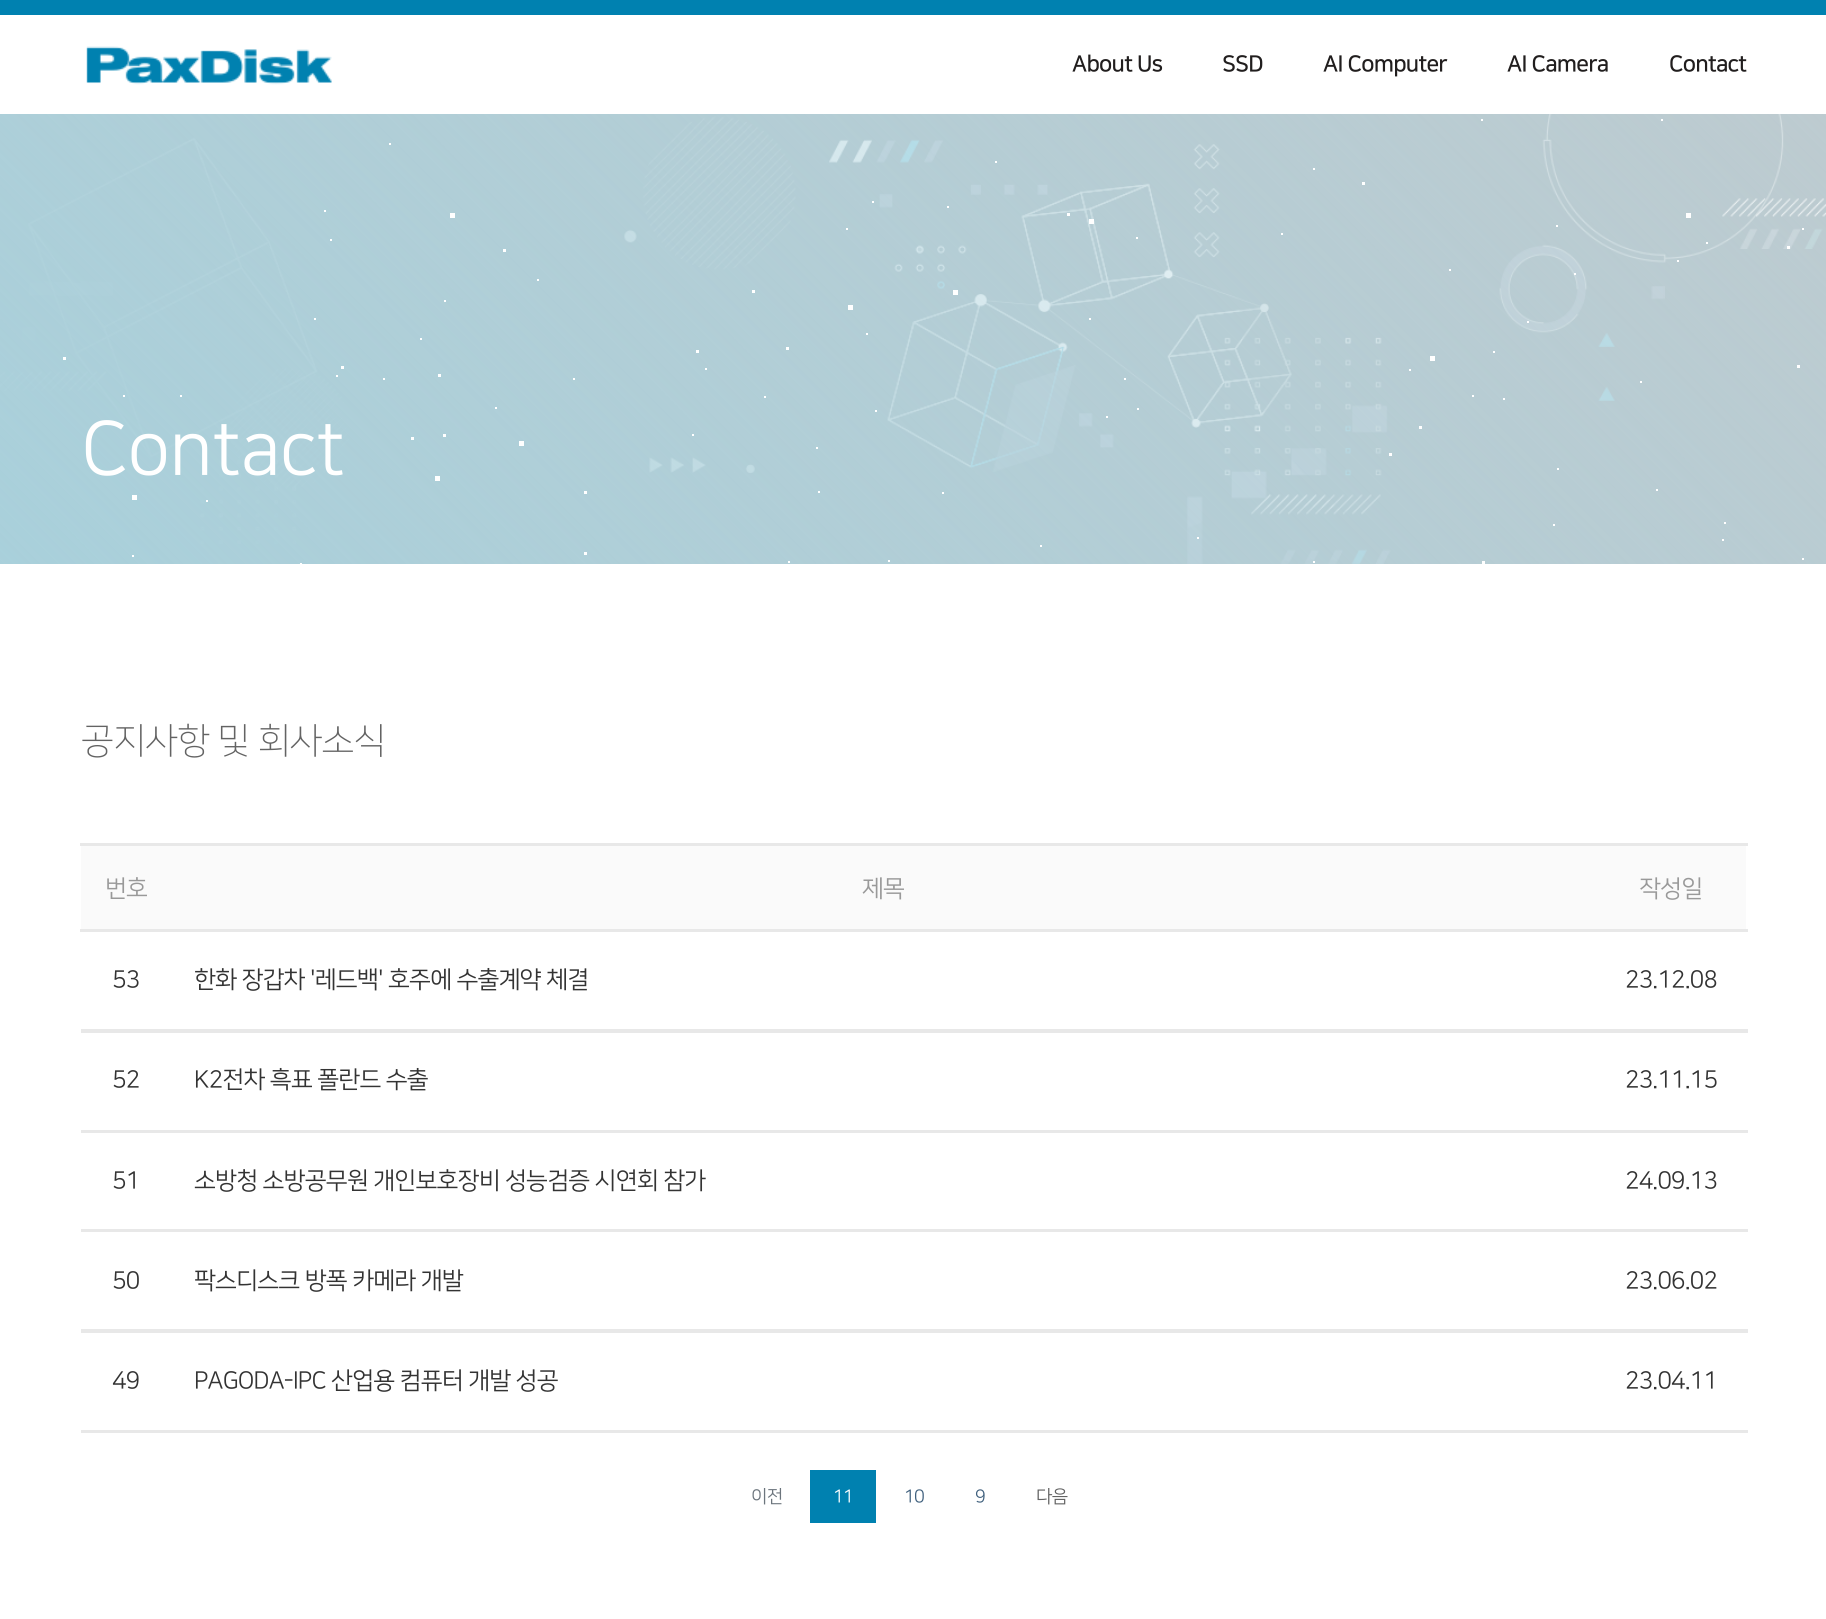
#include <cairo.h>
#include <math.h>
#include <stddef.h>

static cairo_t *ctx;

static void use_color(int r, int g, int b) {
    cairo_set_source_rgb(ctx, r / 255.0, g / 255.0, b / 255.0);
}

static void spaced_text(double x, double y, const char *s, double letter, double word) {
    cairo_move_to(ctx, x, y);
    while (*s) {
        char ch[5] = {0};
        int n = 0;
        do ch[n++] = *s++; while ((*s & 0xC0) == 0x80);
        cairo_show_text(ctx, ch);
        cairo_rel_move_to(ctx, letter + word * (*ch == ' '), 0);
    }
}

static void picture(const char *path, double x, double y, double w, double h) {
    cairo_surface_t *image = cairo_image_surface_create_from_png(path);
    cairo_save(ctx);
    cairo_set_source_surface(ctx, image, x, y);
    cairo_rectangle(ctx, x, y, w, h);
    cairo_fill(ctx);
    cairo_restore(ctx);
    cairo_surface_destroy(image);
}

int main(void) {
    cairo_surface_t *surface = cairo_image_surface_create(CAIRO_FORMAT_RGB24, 1826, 1619);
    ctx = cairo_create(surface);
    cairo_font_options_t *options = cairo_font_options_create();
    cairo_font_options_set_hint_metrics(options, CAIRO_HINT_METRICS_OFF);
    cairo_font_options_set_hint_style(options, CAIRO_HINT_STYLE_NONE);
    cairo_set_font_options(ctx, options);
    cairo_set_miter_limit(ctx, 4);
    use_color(255, 255, 255);
    cairo_paint(ctx);
    use_color(0, 129, 176);
    cairo_rectangle(ctx, 0, 0, 1826, 15);
    cairo_fill(ctx);
    picture("img1.png", 86, 46, 246, 39);
    cairo_select_font_face(ctx, "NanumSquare", CAIRO_FONT_SLANT_NORMAL, CAIRO_FONT_WEIGHT_BOLD);
    cairo_set_font_size(ctx, 22.5);
    use_color(33, 30, 30);
    spaced_text(1072, 71, "About Us", -0.75, 0);
    spaced_text(1222, 71, "SSD", -0.75, 0);
    spaced_text(1323, 71, "AI Computer", -0.75, 0);
    spaced_text(1507, 71, "AI Camera", -0.75, 0);
    spaced_text(1669, 71, "Contact", -0.75, 0);
    picture("img2.png", 0, 114, 1826, 450);
    use_color(255, 255, 255);
    cairo_rectangle(ctx, 444, 300, 2, 2);
    cairo_fill(ctx);
    cairo_rectangle(ctx, 330, 239, 2, 2);
    cairo_fill(ctx);
    cairo_rectangle(ctx, 1574, 273, 2, 2);
    cairo_fill(ctx);
    cairo_rectangle(ctx, 1124, 378, 2, 2);
    cairo_fill(ctx);
    cairo_rectangle(ctx, 1313, 561, 2, 2);
    cairo_fill(ctx);
    cairo_rectangle(ctx, 947, 206, 2, 2);
    cairo_fill(ctx);
    cairo_rectangle(ctx, 314, 318, 2, 2);
    cairo_fill(ctx);
    cairo_rectangle(ctx, 995, 161, 2, 2);
    cairo_fill(ctx);
    cairo_rectangle(ctx, 692, 434, 2, 2);
    cairo_fill(ctx);
    cairo_rectangle(ctx, 942, 492, 2, 2);
    cairo_fill(ctx);
    cairo_rectangle(ctx, 818, 491, 2, 2);
    cairo_fill(ctx);
    cairo_rectangle(ctx, 383, 378, 2, 2);
    cairo_fill(ctx);
    cairo_rectangle(ctx, 1677, 260, 2, 2);
    cairo_fill(ctx);
    cairo_rectangle(ctx, 1493, 351, 2, 2);
    cairo_fill(ctx);
    cairo_rectangle(ctx, 1040, 545, 2, 2);
    cairo_fill(ctx);
    cairo_rectangle(ctx, 420, 338, 2, 2);
    cairo_fill(ctx);
    cairo_rectangle(ctx, 537, 279, 2, 2);
    cairo_fill(ctx);
    cairo_rectangle(ctx, 705, 368, 2, 2);
    cairo_fill(ctx);
    cairo_rectangle(ctx, 1472, 395, 2, 2);
    cairo_fill(ctx);
    cairo_rectangle(ctx, 180, 395, 2, 2);
    cairo_fill(ctx);
    cairo_rectangle(ctx, 1640, 381, 2, 2);
    cairo_fill(ctx);
    cairo_rectangle(ctx, 1409, 369, 2, 2);
    cairo_fill(ctx);
    cairo_rectangle(ctx, 1106, 416, 2, 2);
    cairo_fill(ctx);
    cairo_rectangle(ctx, 300, 563, 2, 1);
    cairo_fill(ctx);
    cairo_rectangle(ctx, 1527, 321, 2, 2);
    cairo_fill(ctx);
    cairo_rectangle(ctx, 1313, 168, 2, 2);
    cairo_fill(ctx);
    cairo_rectangle(ctx, 1724, 522, 2, 2);
    cairo_fill(ctx);
    cairo_rectangle(ctx, 764, 396, 2, 2);
    cairo_fill(ctx);
    cairo_rectangle(ctx, 866, 333, 2, 2);
    cairo_fill(ctx);
    cairo_rectangle(ctx, 1706, 242, 2, 2);
    cairo_fill(ctx);
    cairo_rectangle(ctx, 1802, 228, 2, 2);
    cairo_fill(ctx);
    cairo_rectangle(ctx, 1553, 524, 2, 2);
    cairo_fill(ctx);
    cairo_rectangle(ctx, 1281, 233, 2, 2);
    cairo_fill(ctx);
    cairo_rectangle(ctx, 1481, 119, 2, 2);
    cairo_fill(ctx);
    cairo_rectangle(ctx, 888, 560, 2, 2);
    cairo_fill(ctx);
    cairo_rectangle(ctx, 1661, 119, 2, 2);
    cairo_fill(ctx);
    cairo_rectangle(ctx, 1802, 558, 2, 2);
    cairo_fill(ctx);
    cairo_rectangle(ctx, 872, 201, 2, 2);
    cairo_fill(ctx);
    cairo_rectangle(ctx, 816, 447, 2, 2);
    cairo_fill(ctx);
    cairo_rectangle(ctx, 495, 407, 2, 2);
    cairo_fill(ctx);
    cairo_rectangle(ctx, 1089, 318, 2, 2);
    cairo_fill(ctx);
    cairo_rectangle(ctx, 846, 228, 2, 2);
    cairo_fill(ctx);
    cairo_rectangle(ctx, 788, 561, 2, 2);
    cairo_fill(ctx);
    cairo_rectangle(ctx, 1449, 269, 2, 2);
    cairo_fill(ctx);
    cairo_rectangle(ctx, 123, 395, 2, 2);
    cairo_fill(ctx);
    cairo_rectangle(ctx, 1197, 537, 2, 2);
    cairo_fill(ctx);
    cairo_rectangle(ctx, 1557, 468, 2, 2);
    cairo_fill(ctx);
    cairo_rectangle(ctx, 573, 378, 2, 2);
    cairo_fill(ctx);
    cairo_rectangle(ctx, 1136, 237, 2, 2);
    cairo_fill(ctx);
    cairo_rectangle(ctx, 132, 555, 2, 2);
    cairo_fill(ctx);
    cairo_rectangle(ctx, 1722, 539, 2, 2);
    cairo_fill(ctx);
    cairo_rectangle(ctx, 389, 143, 2, 2);
    cairo_fill(ctx);
    cairo_rectangle(ctx, 1656, 489, 2, 2);
    cairo_fill(ctx);
    cairo_rectangle(ctx, 875, 410, 2, 2);
    cairo_fill(ctx);
    cairo_rectangle(ctx, 324, 210, 2, 2);
    cairo_fill(ctx);
    cairo_rectangle(ctx, 1556, 225, 2, 2);
    cairo_fill(ctx);
    cairo_rectangle(ctx, 1137, 408, 2, 2);
    cairo_fill(ctx);
    cairo_rectangle(ctx, 1503, 398, 2, 2);
    cairo_fill(ctx);
    cairo_rectangle(ctx, 336, 375, 2, 2);
    cairo_fill(ctx);
    cairo_rectangle(ctx, 206, 500, 2, 2);
    cairo_fill(ctx);
    cairo_rectangle(ctx, 1787, 246, 3, 3);
    cairo_fill(ctx);
    cairo_rectangle(ctx, 503, 249, 3, 3);
    cairo_fill(ctx);
    cairo_rectangle(ctx, 1067, 213, 3, 3);
    cairo_fill(ctx);
    cairo_rectangle(ctx, 438, 374, 3, 3);
    cairo_fill(ctx);
    cairo_rectangle(ctx, 341, 366, 3, 3);
    cairo_fill(ctx);
    cairo_rectangle(ctx, 411, 437, 3, 3);
    cairo_fill(ctx);
    cairo_rectangle(ctx, 1362, 182, 3, 3);
    cairo_fill(ctx);
    cairo_rectangle(ctx, 1419, 426, 3, 3);
    cairo_fill(ctx);
    cairo_rectangle(ctx, 443, 434, 3, 3);
    cairo_fill(ctx);
    cairo_rectangle(ctx, 63, 357, 3, 3);
    cairo_fill(ctx);
    cairo_rectangle(ctx, 786, 347, 3, 3);
    cairo_fill(ctx);
    cairo_rectangle(ctx, 584, 552, 3, 3);
    cairo_fill(ctx);
    cairo_rectangle(ctx, 1797, 365, 3, 3);
    cairo_fill(ctx);
    cairo_rectangle(ctx, 584, 491, 3, 3);
    cairo_fill(ctx);
    cairo_rectangle(ctx, 1389, 453, 3, 3);
    cairo_fill(ctx);
    cairo_rectangle(ctx, 752, 290, 3, 3);
    cairo_fill(ctx);
    cairo_rectangle(ctx, 696, 350, 3, 3);
    cairo_fill(ctx);
    cairo_rectangle(ctx, 1482, 561, 3, 3);
    cairo_fill(ctx);
    cairo_rectangle(ctx, 519, 441, 5, 5);
    cairo_fill(ctx);
    cairo_rectangle(ctx, 450, 213, 5, 5);
    cairo_fill(ctx);
    cairo_rectangle(ctx, 953, 290, 5, 5);
    cairo_fill(ctx);
    cairo_rectangle(ctx, 848, 305, 5, 5);
    cairo_fill(ctx);
    cairo_rectangle(ctx, 1430, 356, 5, 5);
    cairo_fill(ctx);
    cairo_rectangle(ctx, 132, 495, 5, 5);
    cairo_fill(ctx);
    cairo_rectangle(ctx, 1686, 213, 5, 5);
    cairo_fill(ctx);
    cairo_rectangle(ctx, 1089, 219, 5, 5);
    cairo_fill(ctx);
    cairo_rectangle(ctx, 435, 476, 5, 5);
    cairo_fill(ctx);
    cairo_select_font_face(ctx, "NanumSquare", CAIRO_FONT_SLANT_NORMAL, CAIRO_FONT_WEIGHT_NORMAL);
    cairo_set_font_size(ctx, 75);
    spaced_text(81, 473, "Contact", -0.75, 0);
    cairo_select_font_face(ctx, "NanumSquare Light", CAIRO_FONT_SLANT_NORMAL, CAIRO_FONT_WEIGHT_NORMAL);
    cairo_set_font_size(ctx, 36);
    use_color(99, 99, 99);
    spaced_text(81, 752, "공지사항 및 회사소식", -0.75, 0);
    use_color(250, 250, 250);
    cairo_rectangle(ctx, 81, 846, 1665, 83);
    cairo_fill(ctx);
    cairo_select_font_face(ctx, "NanumSquare", CAIRO_FONT_SLANT_NORMAL, CAIRO_FONT_WEIGHT_NORMAL);
    cairo_set_font_size(ctx, 24);
    use_color(153, 153, 153);
    spaced_text(105, 896, "번호", -0.75, 0);
    spaced_text(862, 896, "제목", -0.75, 0);
    use_color(232, 232, 232);
    cairo_rectangle(ctx, 80, 843, 1668, 3);
    cairo_fill(ctx);
    cairo_rectangle(ctx, 80, 929, 1668, 3);
    cairo_fill(ctx);
    use_color(153, 153, 153);
    spaced_text(1639, 896, "작성일", -0.75, 0);
    use_color(51, 51, 51);
    spaced_text(112, 987, "53", -0.75, 0);
    spaced_text(194, 987, "한화 장갑차 '레드백' 호주에 수출계약 체결", -0.75, 0);
    spaced_text(1625, 987, "23.12.08", -0.75, 0);
    use_color(232, 232, 232);
    cairo_rectangle(ctx, 81, 1029, 1667, 4);
    cairo_fill(ctx);
    use_color(51, 51, 51);
    spaced_text(112, 1087, "52", -0.75, 0);
    spaced_text(194, 1087, "K2전차 흑표 폴란드 수출", -0.75, 0);
    spaced_text(1625, 1087, "23.11.15", -0.75, 0);
    use_color(232, 232, 232);
    cairo_rectangle(ctx, 81, 1130, 1667, 3);
    cairo_fill(ctx);
    use_color(51, 51, 51);
    spaced_text(112, 1188, "51", -0.75, 0);
    spaced_text(194, 1188, "소방청 소방공무원 개인보호장비 성능검증 시연회 참가", -0.75, 0);
    spaced_text(1625, 1188, "24.09.13", -0.75, 0);
    use_color(232, 232, 232);
    cairo_rectangle(ctx, 81, 1229, 1667, 3);
    cairo_fill(ctx);
    use_color(51, 51, 51);
    spaced_text(112, 1288, "50", -0.75, 0);
    spaced_text(194, 1288, "팍스디스크 방폭 카메라 개발", -0.75, 0);
    spaced_text(1625, 1288, "23.06.02", -0.75, 0);
    use_color(232, 232, 232);
    cairo_rectangle(ctx, 81, 1329, 1667, 4);
    cairo_fill(ctx);
    use_color(51, 51, 51);
    spaced_text(112, 1388, "49", -0.75, 0);
    spaced_text(194, 1388, "PAGODA-IPC 산업용 컴퓨터 개발 성공", -0.75, 0);
    spaced_text(1625, 1388, "23.04.11", -0.75, 0);
    use_color(232, 232, 232);
    cairo_rectangle(ctx, 81, 1430, 1667, 3);
    cairo_fill(ctx);
    cairo_set_font_size(ctx, 18);
    use_color(108, 117, 125);
    spaced_text(751, 1502, "이전", -0.75, 0);
    use_color(0, 129, 176);
    cairo_rectangle(ctx, 810, 1470, 66, 53);
    cairo_fill(ctx);
    use_color(255, 255, 255);
    spaced_text(833, 1502, "11", -0.75, 0);
    use_color(65, 97, 126);
    spaced_text(904, 1502, "10", -0.75, 0);
    spaced_text(975, 1502, "9", -0.75, 0);
    use_color(99, 99, 99);
    spaced_text(1036, 1502, "다음", -0.75, 0);
    cairo_surface_write_to_png(surface, "result.png");
    cairo_font_options_destroy(options);
    cairo_destroy(ctx);
    cairo_surface_destroy(surface);
    return 0;
}
